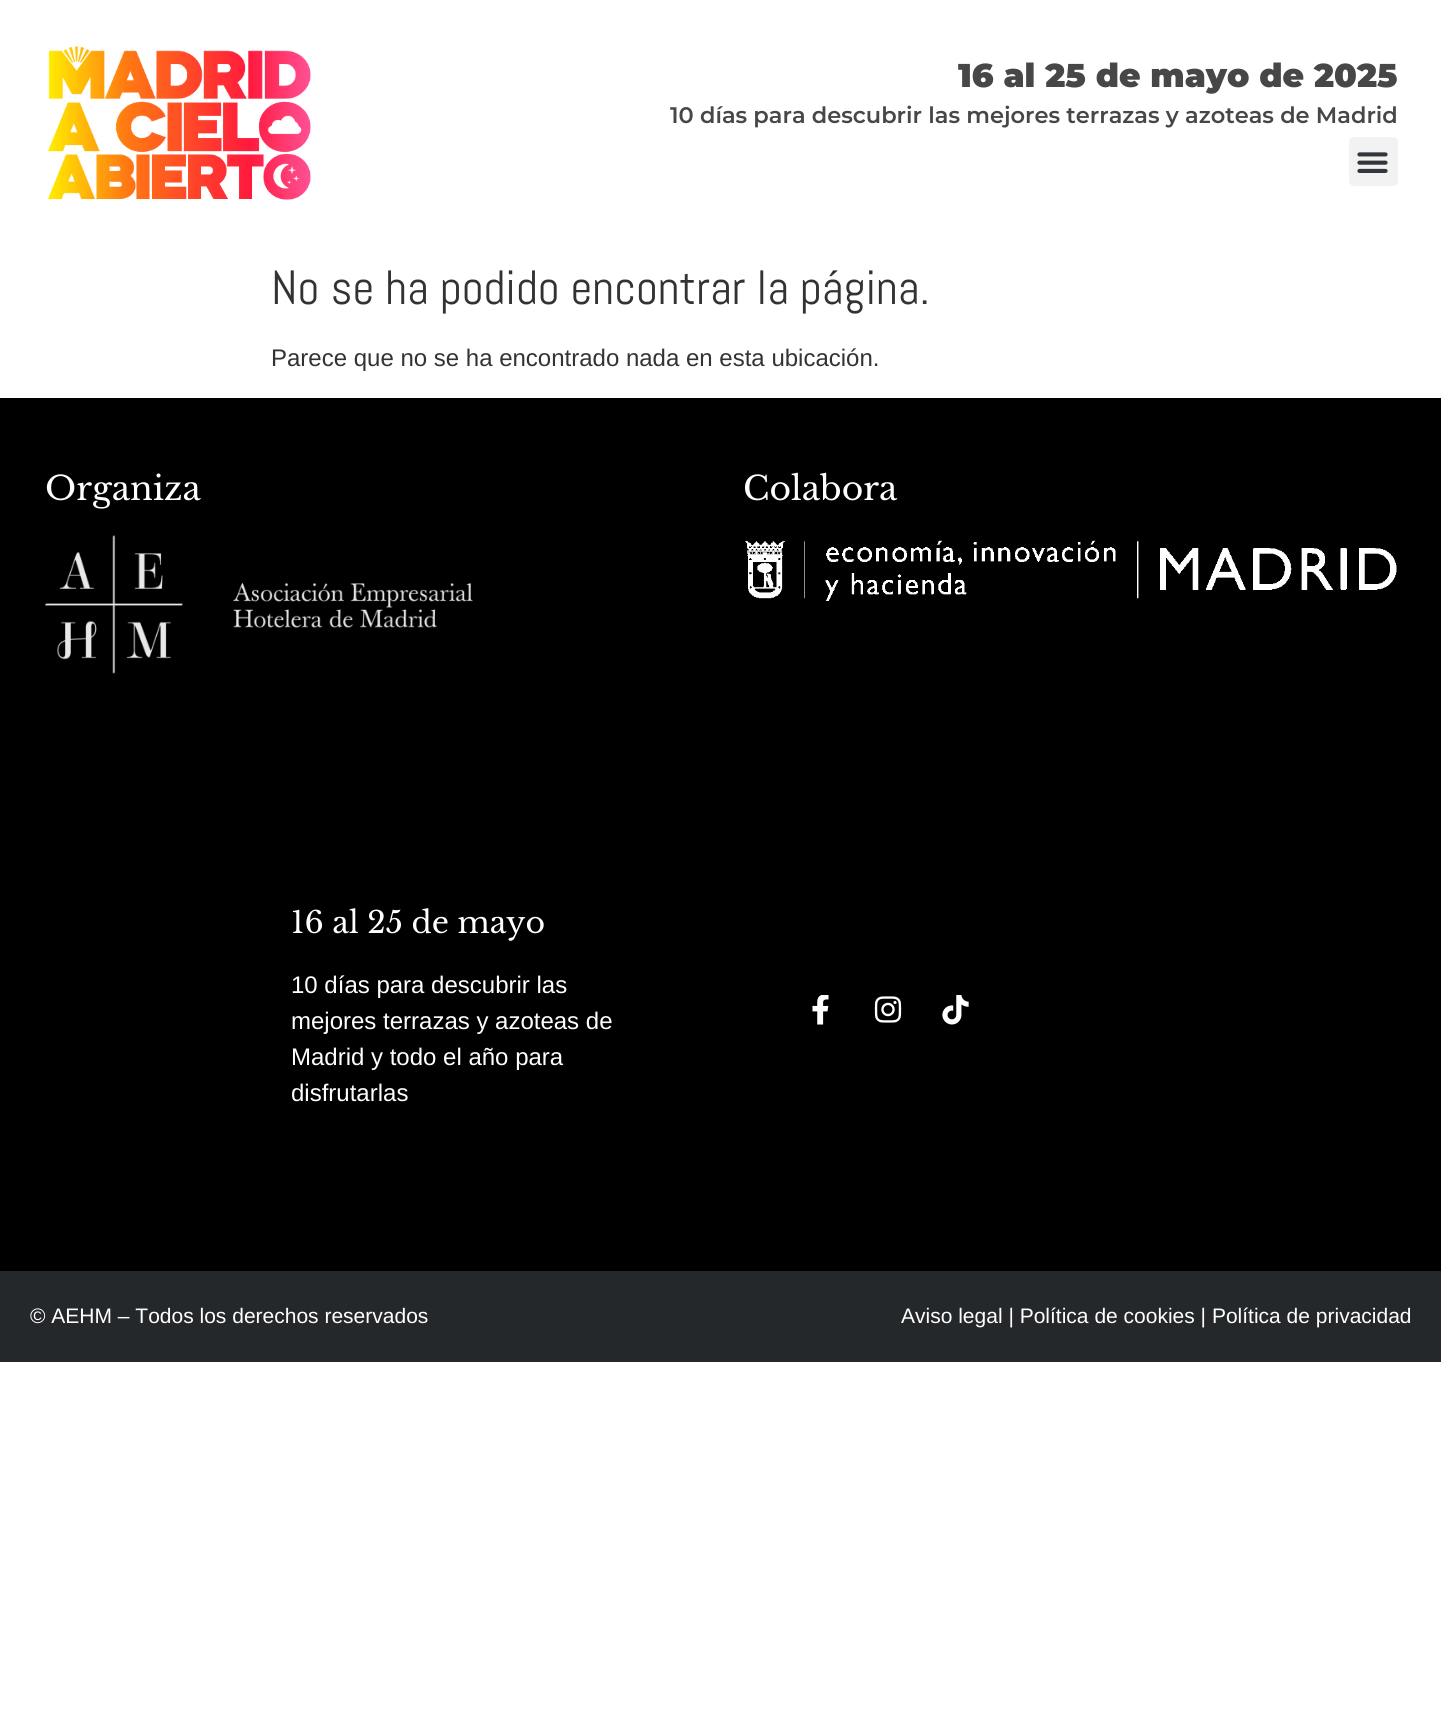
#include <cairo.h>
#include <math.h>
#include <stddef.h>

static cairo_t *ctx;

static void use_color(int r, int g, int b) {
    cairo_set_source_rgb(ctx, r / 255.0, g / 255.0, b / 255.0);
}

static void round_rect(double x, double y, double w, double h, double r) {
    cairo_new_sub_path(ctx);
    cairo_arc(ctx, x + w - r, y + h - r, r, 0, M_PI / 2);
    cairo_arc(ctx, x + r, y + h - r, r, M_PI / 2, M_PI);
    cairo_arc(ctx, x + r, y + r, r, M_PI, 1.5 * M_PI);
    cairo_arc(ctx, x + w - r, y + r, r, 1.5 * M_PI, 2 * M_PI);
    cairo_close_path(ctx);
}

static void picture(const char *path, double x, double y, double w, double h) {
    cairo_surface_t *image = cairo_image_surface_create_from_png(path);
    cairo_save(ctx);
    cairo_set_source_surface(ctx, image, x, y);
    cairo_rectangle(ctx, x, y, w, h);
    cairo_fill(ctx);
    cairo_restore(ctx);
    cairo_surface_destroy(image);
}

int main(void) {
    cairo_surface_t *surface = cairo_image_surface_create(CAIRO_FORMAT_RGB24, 1441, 1728);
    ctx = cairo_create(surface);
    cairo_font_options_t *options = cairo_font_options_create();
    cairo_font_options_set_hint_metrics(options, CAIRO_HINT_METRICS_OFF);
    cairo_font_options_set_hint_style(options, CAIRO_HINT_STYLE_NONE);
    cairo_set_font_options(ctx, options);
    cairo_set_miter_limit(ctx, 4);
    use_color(255, 255, 255);
    cairo_paint(ctx);
    picture("img1.png", 48, 46, 263, 154);
    cairo_select_font_face(ctx, "Montserrat Black", CAIRO_FONT_SLANT_NORMAL, CAIRO_FONT_WEIGHT_NORMAL);
    cairo_set_font_size(ctx, 33);
    use_color(71, 71, 71);
    cairo_move_to(ctx, 958, 87);
    cairo_show_text(ctx, "16 al 25 de mayo de 2025");
    cairo_select_font_face(ctx, "Montserrat SemiBold", CAIRO_FONT_SLANT_NORMAL, CAIRO_FONT_WEIGHT_NORMAL);
    cairo_set_font_size(ctx, 22.5);
    cairo_move_to(ctx, 670, 123);
    cairo_show_text(ctx, "10 días para descubrir las mejores terrazas y azoteas de Madrid");
    use_color(242, 242, 242);
    round_rect(1349, 137, 49, 49, 5);
    cairo_fill(ctx);
    picture("img2.png", 1357, 152, 31, 21);
    cairo_select_font_face(ctx, "Abel", CAIRO_FONT_SLANT_NORMAL, CAIRO_FONT_WEIGHT_NORMAL);
    cairo_set_font_size(ctx, 48);
    use_color(51, 51, 51);
    cairo_move_to(ctx, 271, 304);
    cairo_show_text(ctx, "No se ha podido encontrar la página.");
    cairo_select_font_face(ctx, "Liberation Sans", CAIRO_FONT_SLANT_NORMAL, CAIRO_FONT_WEIGHT_NORMAL);
    cairo_set_font_size(ctx, 24);
    cairo_move_to(ctx, 271, 366);
    cairo_show_text(ctx, "Parece que no se ha encontrado nada en esta ubicación.");
    use_color(0, 0, 0);
    cairo_rectangle(ctx, 0, 398, 1441, 873);
    cairo_fill(ctx);
    cairo_select_font_face(ctx, "Libre Baskerville", CAIRO_FONT_SLANT_NORMAL, CAIRO_FONT_WEIGHT_NORMAL);
    cairo_set_font_size(ctx, 33);
    use_color(255, 255, 255);
    cairo_move_to(ctx, 45, 500);
    cairo_show_text(ctx, "Organiza");
    picture("img3.png", 45, 535, 428, 139);
    cairo_move_to(ctx, 743, 500);
    cairo_show_text(ctx, "Colabora");
    picture("img4.png", 745, 540, 652, 61);
    cairo_set_font_size(ctx, 30);
    cairo_move_to(ctx, 291, 933);
    cairo_show_text(ctx, "16 al 25 de mayo");
    cairo_select_font_face(ctx, "Liberation Sans", CAIRO_FONT_SLANT_NORMAL, CAIRO_FONT_WEIGHT_NORMAL);
    cairo_set_font_size(ctx, 24);
    cairo_move_to(ctx, 291, 993);
    cairo_show_text(ctx, "10 días para descubrir las");
    cairo_move_to(ctx, 291, 1029);
    cairo_show_text(ctx, "mejores terrazas y azoteas de");
    cairo_move_to(ctx, 291, 1065);
    cairo_show_text(ctx, "Madrid y todo el año para");
    cairo_move_to(ctx, 291, 1101);
    cairo_show_text(ctx, "disfrutarlas");
    picture("img5.png", 812, 995, 17, 30);
    picture("img6.png", 874, 996, 28, 27);
    picture("img7.png", 942, 995, 27, 30);
    use_color(37, 40, 43);
    cairo_rectangle(ctx, 0, 1271, 1441, 91);
    cairo_fill(ctx);
    cairo_set_font_size(ctx, 21);
    use_color(255, 255, 255);
    cairo_move_to(ctx, 30, 1323);
    cairo_show_text(ctx, "© AEHM – Todos los derechos reservados");
    cairo_move_to(ctx, 901, 1323);
    cairo_show_text(ctx, "Aviso legal | Política de cookies | Política de privacidad");
    cairo_surface_write_to_png(surface, "result.png");
    cairo_font_options_destroy(options);
    cairo_destroy(ctx);
    cairo_surface_destroy(surface);
    return 0;
}
